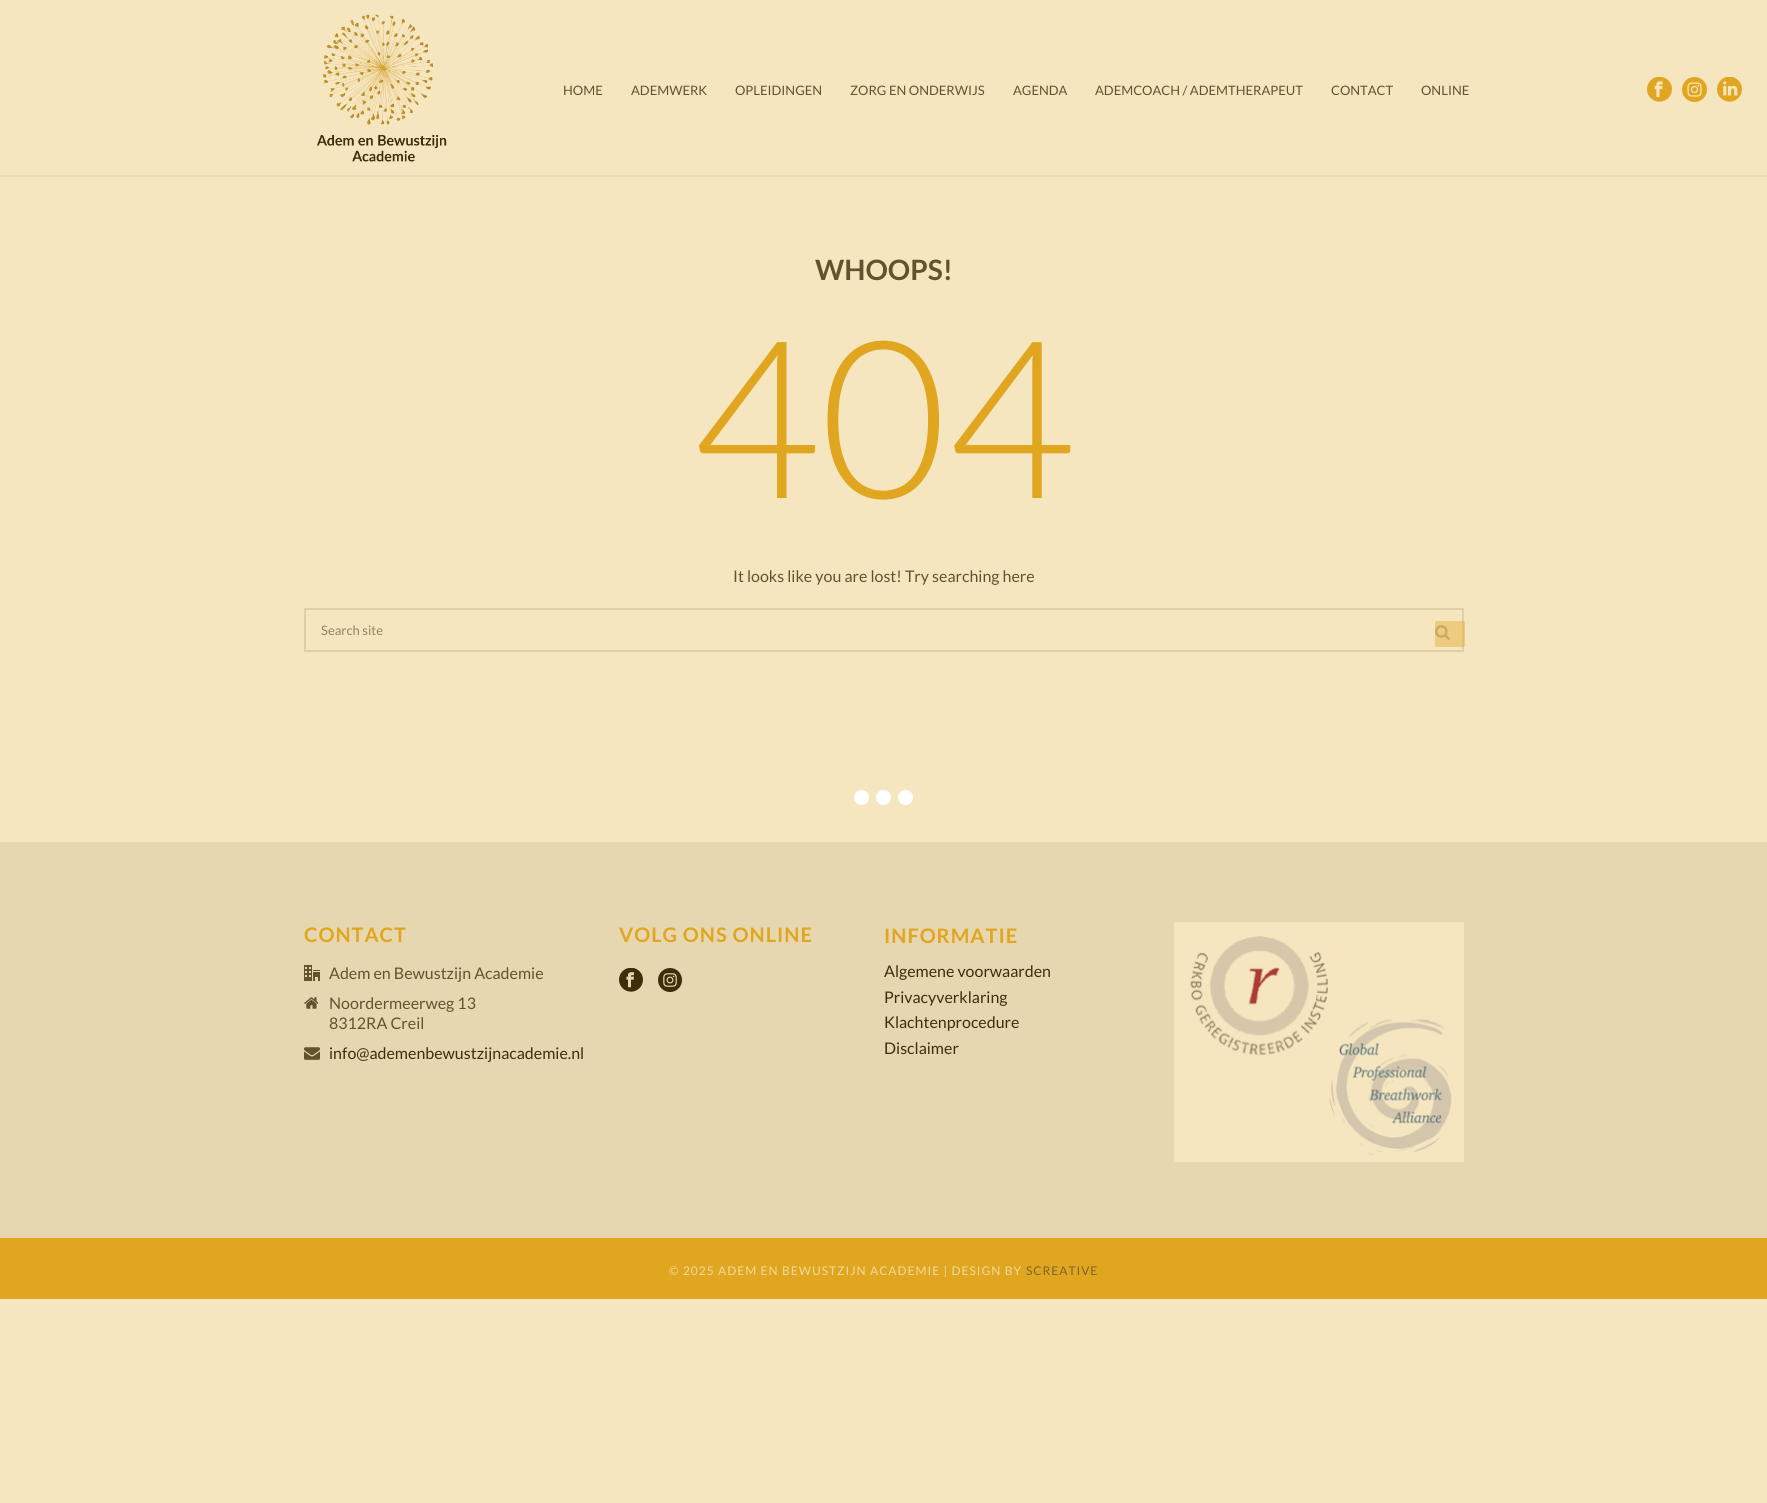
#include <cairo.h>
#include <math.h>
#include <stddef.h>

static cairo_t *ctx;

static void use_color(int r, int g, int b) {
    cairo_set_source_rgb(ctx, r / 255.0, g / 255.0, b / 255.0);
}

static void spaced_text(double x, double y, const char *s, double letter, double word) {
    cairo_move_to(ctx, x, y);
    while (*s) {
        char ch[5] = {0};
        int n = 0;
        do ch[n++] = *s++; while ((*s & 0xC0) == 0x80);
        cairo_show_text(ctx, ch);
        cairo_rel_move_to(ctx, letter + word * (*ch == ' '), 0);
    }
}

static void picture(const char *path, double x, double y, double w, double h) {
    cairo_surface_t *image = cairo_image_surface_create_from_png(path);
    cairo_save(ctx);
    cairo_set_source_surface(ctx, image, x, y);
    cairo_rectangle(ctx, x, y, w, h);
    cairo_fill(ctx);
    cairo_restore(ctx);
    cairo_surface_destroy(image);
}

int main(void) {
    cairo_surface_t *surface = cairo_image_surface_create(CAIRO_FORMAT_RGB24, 1767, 1503);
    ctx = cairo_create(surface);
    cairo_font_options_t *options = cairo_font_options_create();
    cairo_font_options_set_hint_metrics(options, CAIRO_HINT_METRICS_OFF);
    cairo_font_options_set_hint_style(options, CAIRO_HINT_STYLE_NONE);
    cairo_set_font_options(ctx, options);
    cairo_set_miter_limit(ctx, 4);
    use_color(246, 230, 192);
    cairo_paint(ctx);
    use_color(233, 217, 179);
    cairo_rectangle(ctx, 0, 175, 1767, 2);
    cairo_fill(ctx);
    picture("img1.png", 317, 14, 130, 148);
    cairo_select_font_face(ctx, "Lato", CAIRO_FONT_SLANT_NORMAL, CAIRO_FONT_WEIGHT_NORMAL);
    cairo_set_font_size(ctx, 13);
    use_color(99, 83, 45);
    cairo_move_to(ctx, 563, 95);
    cairo_show_text(ctx, "HOME");
    cairo_move_to(ctx, 631, 95);
    cairo_show_text(ctx, "ADEMWERK");
    cairo_move_to(ctx, 735, 95);
    cairo_show_text(ctx, "OPLEIDINGEN");
    cairo_move_to(ctx, 850, 95);
    cairo_show_text(ctx, "ZORG EN ONDERWIJS");
    cairo_move_to(ctx, 1013, 95);
    cairo_show_text(ctx, "AGENDA");
    cairo_move_to(ctx, 1095, 95);
    cairo_show_text(ctx, "ADEMCOACH / ADEMTHERAPEUT");
    cairo_move_to(ctx, 1331, 95);
    cairo_show_text(ctx, "CONTACT");
    cairo_move_to(ctx, 1421, 95);
    cairo_show_text(ctx, "ONLINE");
    picture("img2.png", 1647, 77, 25, 25);
    picture("img3.png", 1682, 77, 25, 25);
    picture("img4.png", 1717, 77, 25, 25);
    cairo_select_font_face(ctx, "Lato", CAIRO_FONT_SLANT_NORMAL, CAIRO_FONT_WEIGHT_BOLD);
    cairo_set_font_size(ctx, 28);
    cairo_move_to(ctx, 815, 280);
    cairo_show_text(ctx, "WHOOPS!");
    cairo_select_font_face(ctx, "Lato Light", CAIRO_FONT_SLANT_NORMAL, CAIRO_FONT_WEIGHT_NORMAL);
    cairo_set_font_size(ctx, 220);
    use_color(224, 166, 31);
    cairo_move_to(ctx, 692, 498);
    cairo_show_text(ctx, "404");
    cairo_select_font_face(ctx, "Lato", CAIRO_FONT_SLANT_NORMAL, CAIRO_FONT_WEIGHT_NORMAL);
    cairo_set_font_size(ctx, 16);
    use_color(99, 83, 45);
    cairo_move_to(ctx, 733, 582);
    cairo_show_text(ctx, "It looks like you are lost! Try searching here");
    cairo_rectangle(ctx, 305, 609, 1158, 42);
    use_color(223, 207, 169);
    cairo_stroke(ctx);
    cairo_set_font_size(ctx, 13);
    use_color(147, 131, 93);
    cairo_move_to(ctx, 321, 635);
    cairo_show_text(ctx, "Search site");
    picture("img5.png", 1435, 625, 15, 15);
    cairo_set_source_rgba(ctx, 0.878, 0.651, 0.122, 0.4);
    cairo_rectangle(ctx, 1435, 621, 30, 26);
    cairo_fill(ctx);
    use_color(231, 215, 177);
    cairo_rectangle(ctx, 0, 842, 1767, 396);
    cairo_fill(ctx);
    cairo_select_font_face(ctx, "Lato", CAIRO_FONT_SLANT_NORMAL, CAIRO_FONT_WEIGHT_BOLD);
    cairo_set_font_size(ctx, 20);
    use_color(224, 166, 31);
    spaced_text(304, 942, "CONTACT", 1, 0);
    picture("img6.png", 304, 965, 16, 16);
    cairo_select_font_face(ctx, "Lato", CAIRO_FONT_SLANT_NORMAL, CAIRO_FONT_WEIGHT_NORMAL);
    cairo_set_font_size(ctx, 16);
    use_color(99, 83, 45);
    cairo_move_to(ctx, 329, 979);
    cairo_show_text(ctx, "Adem en Bewustzijn Academie");
    picture("img7.png", 304, 997, 14, 12);
    cairo_move_to(ctx, 329, 1009);
    cairo_show_text(ctx, "Noordermeerweg 13");
    cairo_move_to(ctx, 329, 1029);
    cairo_show_text(ctx, "8312RA Creil");
    picture("img8.png", 304, 1047, 16, 13);
    use_color(63, 46, 9);
    cairo_move_to(ctx, 329, 1059);
    cairo_show_text(ctx, "info@ademenbewustzijnacademie.nl");
    cairo_select_font_face(ctx, "Lato", CAIRO_FONT_SLANT_NORMAL, CAIRO_FONT_WEIGHT_BOLD);
    cairo_set_font_size(ctx, 20);
    use_color(224, 166, 31);
    spaced_text(619, 942, "VOLG ONS ONLINE", 1, 0);
    picture("img9.png", 619, 968, 24, 24);
    picture("img10.png", 658, 968, 24, 24);
    spaced_text(884, 943, "INFORMATIE", 1, 0);
    cairo_select_font_face(ctx, "Lato", CAIRO_FONT_SLANT_NORMAL, CAIRO_FONT_WEIGHT_NORMAL);
    cairo_set_font_size(ctx, 16);
    use_color(63, 46, 9);
    cairo_move_to(ctx, 884, 977);
    cairo_show_text(ctx, "Algemene voorwaarden");
    cairo_move_to(ctx, 884, 1003);
    cairo_show_text(ctx, "Privacyverklaring");
    cairo_move_to(ctx, 884, 1028);
    cairo_show_text(ctx, "Klachtenprocedure");
    cairo_move_to(ctx, 884, 1054);
    cairo_show_text(ctx, "Disclaimer");
    picture("img11.png", 1174, 922, 290, 240);
    use_color(224, 166, 31);
    cairo_rectangle(ctx, 0, 1238, 1767, 61);
    cairo_fill(ctx);
    cairo_set_font_size(ctx, 12);
    use_color(242, 217, 160);
    spaced_text(669, 1275, "© 2025 ADEM EN BEWUSTZIJN ACADEMIE | DESIGN BY", 1, 0);
    use_color(125, 100, 43);
    spaced_text(1026, 1275, "SCREATIVE", 1, 0);
    use_color(255, 255, 255);
    cairo_new_path(ctx);
    cairo_arc(ctx, 861.5, 797.5, 7.5, 0, 2 * M_PI);
    cairo_fill(ctx);
    cairo_arc(ctx, 883.5, 797.5, 7.5, 0, 2 * M_PI);
    cairo_fill(ctx);
    cairo_arc(ctx, 905.5, 797.5, 7.5, 0, 2 * M_PI);
    cairo_fill(ctx);
    cairo_surface_write_to_png(surface, "result.png");
    cairo_font_options_destroy(options);
    cairo_destroy(ctx);
    cairo_surface_destroy(surface);
    return 0;
}
